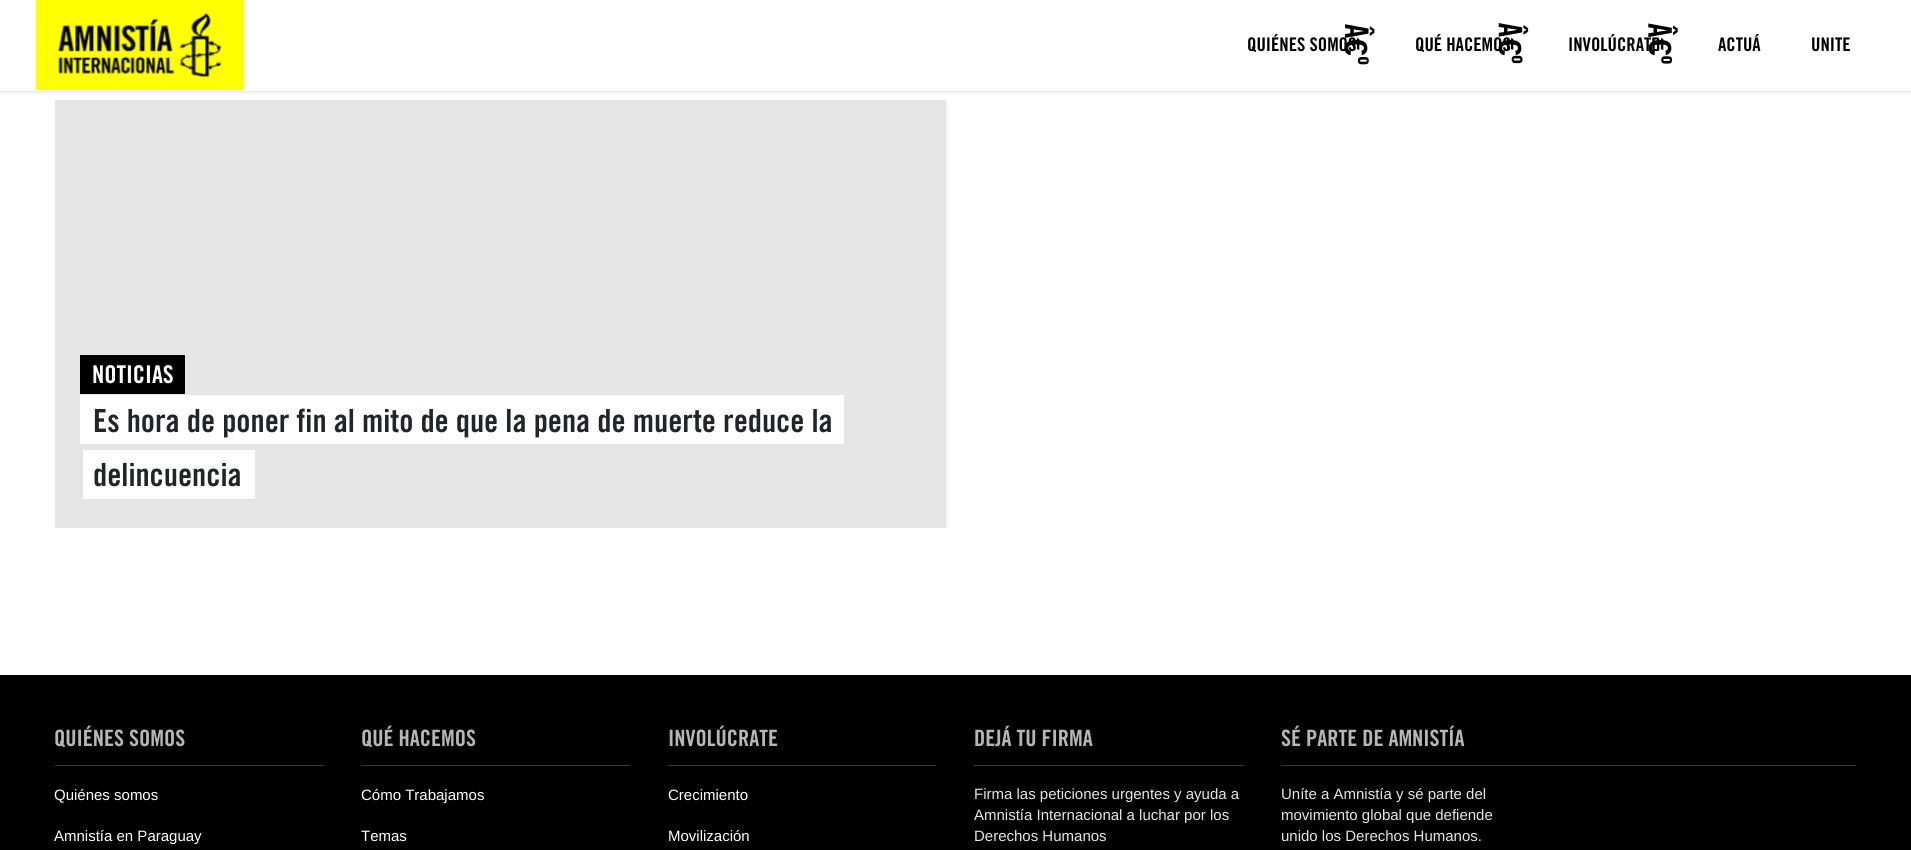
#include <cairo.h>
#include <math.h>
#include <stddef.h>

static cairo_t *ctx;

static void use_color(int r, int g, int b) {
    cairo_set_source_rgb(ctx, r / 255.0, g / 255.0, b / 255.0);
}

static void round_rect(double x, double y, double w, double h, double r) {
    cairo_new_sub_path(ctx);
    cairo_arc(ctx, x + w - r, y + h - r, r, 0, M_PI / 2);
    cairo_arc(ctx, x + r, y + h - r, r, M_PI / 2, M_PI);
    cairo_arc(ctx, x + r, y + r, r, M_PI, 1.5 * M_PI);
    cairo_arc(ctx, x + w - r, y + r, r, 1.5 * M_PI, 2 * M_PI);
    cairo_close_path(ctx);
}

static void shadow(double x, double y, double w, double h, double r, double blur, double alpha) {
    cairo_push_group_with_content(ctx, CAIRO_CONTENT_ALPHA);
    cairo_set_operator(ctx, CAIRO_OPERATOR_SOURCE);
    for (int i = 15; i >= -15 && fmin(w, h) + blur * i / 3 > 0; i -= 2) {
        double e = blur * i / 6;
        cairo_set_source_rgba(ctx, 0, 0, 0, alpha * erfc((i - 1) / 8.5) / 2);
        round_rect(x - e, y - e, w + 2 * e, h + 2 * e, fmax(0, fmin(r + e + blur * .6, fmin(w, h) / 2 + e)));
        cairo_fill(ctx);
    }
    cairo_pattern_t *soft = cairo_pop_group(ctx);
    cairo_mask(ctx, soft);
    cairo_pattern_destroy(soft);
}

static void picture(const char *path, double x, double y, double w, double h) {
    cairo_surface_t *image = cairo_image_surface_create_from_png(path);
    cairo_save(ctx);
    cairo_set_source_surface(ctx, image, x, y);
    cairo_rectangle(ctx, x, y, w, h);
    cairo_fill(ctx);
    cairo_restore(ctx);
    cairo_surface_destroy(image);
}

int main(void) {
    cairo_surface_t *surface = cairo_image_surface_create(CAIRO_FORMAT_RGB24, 1911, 850);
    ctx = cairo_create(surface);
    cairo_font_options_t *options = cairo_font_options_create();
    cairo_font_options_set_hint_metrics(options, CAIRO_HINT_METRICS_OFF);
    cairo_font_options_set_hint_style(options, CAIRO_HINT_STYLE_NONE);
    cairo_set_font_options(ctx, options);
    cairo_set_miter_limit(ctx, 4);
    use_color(255, 255, 255);
    cairo_paint(ctx);
    cairo_save(ctx);
    cairo_rectangle(ctx, 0, 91, 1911, 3);
    cairo_clip(ctx);
    use_color(0, 0, 0);
    shadow(0, 0, 1911, 91, 0, 2, 0.2);
    cairo_restore(ctx);
    use_color(255, 255, 0);
    cairo_rectangle(ctx, 36, 0, 208, 90);
    cairo_fill(ctx);
    picture("img1.png", 58, 13, 164, 64);
    cairo_select_font_face(ctx, "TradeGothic", CAIRO_FONT_SLANT_NORMAL, CAIRO_FONT_WEIGHT_BOLD);
    cairo_set_font_size(ctx, 18.75);
    use_color(0, 0, 0);
    cairo_move_to(ctx, 1247, 51);
    cairo_show_text(ctx, "QUIÉNES SOMOS");
    picture("img2.png", 1345, 24, 30, 14);
    picture("img3.png", 1357, 57, 12, 8);
    cairo_select_font_face(ctx, "Liberation Sans", CAIRO_FONT_SLANT_NORMAL, CAIRO_FONT_WEIGHT_BOLD);
    cairo_set_font_size(ctx, 32);
    cairo_save(ctx);
    cairo_translate(ctx, 1345, 38);
    cairo_rotate(ctx, 90 * M_PI / 180);
    cairo_move_to(ctx, 0, 0);
    cairo_show_text(ctx, "€");
    cairo_restore(ctx);
    cairo_select_font_face(ctx, "TradeGothic", CAIRO_FONT_SLANT_NORMAL, CAIRO_FONT_WEIGHT_BOLD);
    cairo_set_font_size(ctx, 18.75);
    cairo_move_to(ctx, 1415, 51);
    cairo_show_text(ctx, "QUÉ HACEMOS");
    picture("img4.png", 1498, 23, 31, 14);
    picture("img5.png", 1511, 55, 12, 9);
    cairo_select_font_face(ctx, "Liberation Sans", CAIRO_FONT_SLANT_NORMAL, CAIRO_FONT_WEIGHT_BOLD);
    cairo_set_font_size(ctx, 32);
    cairo_save(ctx);
    cairo_translate(ctx, 1499, 38);
    cairo_rotate(ctx, 90 * M_PI / 180);
    cairo_move_to(ctx, 0, 0);
    cairo_show_text(ctx, "€");
    cairo_restore(ctx);
    cairo_select_font_face(ctx, "TradeGothic", CAIRO_FONT_SLANT_NORMAL, CAIRO_FONT_WEIGHT_BOLD);
    cairo_set_font_size(ctx, 18.75);
    cairo_move_to(ctx, 1568, 51);
    cairo_show_text(ctx, "INVOLÚCRATE");
    picture("img6.png", 1648, 23, 30, 15);
    picture("img7.png", 1661, 56, 12, 8);
    cairo_select_font_face(ctx, "Liberation Sans", CAIRO_FONT_SLANT_NORMAL, CAIRO_FONT_WEIGHT_BOLD);
    cairo_set_font_size(ctx, 32);
    cairo_save(ctx);
    cairo_translate(ctx, 1649, 38);
    cairo_rotate(ctx, 90 * M_PI / 180);
    cairo_move_to(ctx, 0, 0);
    cairo_show_text(ctx, "€");
    cairo_restore(ctx);
    cairo_select_font_face(ctx, "TradeGothic", CAIRO_FONT_SLANT_NORMAL, CAIRO_FONT_WEIGHT_BOLD);
    cairo_set_font_size(ctx, 18.75);
    cairo_move_to(ctx, 1718, 51);
    cairo_show_text(ctx, "ACTUÁ");
    cairo_move_to(ctx, 1811, 51);
    cairo_show_text(ctx, "UNITE");
    cairo_save(ctx);
    cairo_rectangle(ctx, 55, 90, 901, 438);
    cairo_clip(ctx);
    use_color(0, 0, 0);
    shadow(55, 104, 891, 437, 0, 3, 0.1);
    cairo_restore(ctx);
    use_color(229, 229, 229);
    cairo_rectangle(ctx, 55, 100, 891, 428);
    cairo_fill(ctx);
    use_color(0, 0, 0);
    cairo_rectangle(ctx, 80, 355, 105, 39);
    cairo_fill(ctx);
    cairo_set_font_size(ctx, 24.5);
    use_color(255, 255, 255);
    cairo_move_to(ctx, 92, 383);
    cairo_show_text(ctx, "NOTICIAS");
    cairo_rectangle(ctx, 91, 395, 741, 49);
    cairo_fill(ctx);
    cairo_set_font_size(ctx, 31.9);
    use_color(33, 37, 41);
    cairo_move_to(ctx, 93, 432);
    cairo_show_text(ctx, "Es hora de poner fin al mito de que la pena de muerte reduce la");
    use_color(255, 255, 255);
    cairo_new_path(ctx);
    cairo_move_to(ctx, 80, 395);
    cairo_line_to(ctx, 80, 444);
    cairo_line_to(ctx, 821, 444);
    cairo_line_to(ctx, 91, 444);
    cairo_line_to(ctx, 91, 395);
    cairo_close_path(ctx);
    cairo_fill(ctx);
    cairo_new_path(ctx);
    cairo_move_to(ctx, 103, 444);
    cairo_line_to(ctx, 844, 444);
    cairo_line_to(ctx, 844, 395);
    cairo_line_to(ctx, 832, 395);
    cairo_line_to(ctx, 832, 444);
    cairo_close_path(ctx);
    cairo_fill(ctx);
    cairo_rectangle(ctx, 94, 450, 150, 49);
    cairo_fill(ctx);
    use_color(33, 37, 41);
    cairo_move_to(ctx, 93, 486);
    cairo_show_text(ctx, "delincuencia");
    use_color(255, 255, 255);
    cairo_new_path(ctx);
    cairo_move_to(ctx, 83, 450);
    cairo_line_to(ctx, 83, 499);
    cairo_line_to(ctx, 233, 499);
    cairo_line_to(ctx, 94, 499);
    cairo_line_to(ctx, 94, 450);
    cairo_close_path(ctx);
    cairo_fill(ctx);
    cairo_new_path(ctx);
    cairo_move_to(ctx, 105, 499);
    cairo_line_to(ctx, 255, 499);
    cairo_line_to(ctx, 255, 450);
    cairo_line_to(ctx, 244, 450);
    cairo_line_to(ctx, 244, 499);
    cairo_close_path(ctx);
    cairo_fill(ctx);
    use_color(0, 0, 0);
    cairo_rectangle(ctx, 0, 675, 1911, 175);
    cairo_fill(ctx);
    use_color(54, 54, 54);
    cairo_rectangle(ctx, 55, 765, 269, 1);
    cairo_fill(ctx);
    cairo_set_font_size(ctx, 22.5);
    use_color(182, 182, 182);
    cairo_move_to(ctx, 54, 746);
    cairo_show_text(ctx, "QUIÉNES SOMOS");
    cairo_select_font_face(ctx, "Liberation Sans", CAIRO_FONT_SLANT_NORMAL, CAIRO_FONT_WEIGHT_NORMAL);
    cairo_set_font_size(ctx, 15);
    use_color(255, 255, 255);
    cairo_move_to(ctx, 54, 800);
    cairo_show_text(ctx, "Quiénes somos");
    cairo_move_to(ctx, 54, 841);
    cairo_show_text(ctx, "Amnistía en Paraguay");
    use_color(54, 54, 54);
    cairo_rectangle(ctx, 361, 765, 269, 1);
    cairo_fill(ctx);
    cairo_select_font_face(ctx, "TradeGothic", CAIRO_FONT_SLANT_NORMAL, CAIRO_FONT_WEIGHT_BOLD);
    cairo_set_font_size(ctx, 22.5);
    use_color(182, 182, 182);
    cairo_move_to(ctx, 361, 746);
    cairo_show_text(ctx, "QUÉ HACEMOS");
    cairo_select_font_face(ctx, "Liberation Sans", CAIRO_FONT_SLANT_NORMAL, CAIRO_FONT_WEIGHT_NORMAL);
    cairo_set_font_size(ctx, 15);
    use_color(255, 255, 255);
    cairo_move_to(ctx, 361, 800);
    cairo_show_text(ctx, "Cómo Trabajamos");
    cairo_move_to(ctx, 361, 841);
    cairo_show_text(ctx, "Temas");
    use_color(54, 54, 54);
    cairo_rectangle(ctx, 668, 765, 268, 1);
    cairo_fill(ctx);
    cairo_select_font_face(ctx, "TradeGothic", CAIRO_FONT_SLANT_NORMAL, CAIRO_FONT_WEIGHT_BOLD);
    cairo_set_font_size(ctx, 22.5);
    use_color(182, 182, 182);
    cairo_move_to(ctx, 668, 746);
    cairo_show_text(ctx, "INVOLÚCRATE");
    cairo_select_font_face(ctx, "Liberation Sans", CAIRO_FONT_SLANT_NORMAL, CAIRO_FONT_WEIGHT_NORMAL);
    cairo_set_font_size(ctx, 15);
    use_color(255, 255, 255);
    cairo_move_to(ctx, 668, 800);
    cairo_show_text(ctx, "Crecimiento");
    cairo_move_to(ctx, 668, 841);
    cairo_show_text(ctx, "Movilización");
    use_color(54, 54, 54);
    cairo_rectangle(ctx, 974, 765, 270, 1);
    cairo_fill(ctx);
    cairo_select_font_face(ctx, "TradeGothic", CAIRO_FONT_SLANT_NORMAL, CAIRO_FONT_WEIGHT_BOLD);
    cairo_set_font_size(ctx, 22.5);
    use_color(182, 182, 182);
    cairo_move_to(ctx, 974, 746);
    cairo_show_text(ctx, "DEJÁ TU FIRMA");
    cairo_select_font_face(ctx, "Liberation Sans", CAIRO_FONT_SLANT_NORMAL, CAIRO_FONT_WEIGHT_NORMAL);
    cairo_set_font_size(ctx, 15);
    use_color(230, 230, 230);
    cairo_move_to(ctx, 974, 799);
    cairo_show_text(ctx, "Firma las peticiones urgentes y ayuda a");
    cairo_move_to(ctx, 974, 820);
    cairo_show_text(ctx, "Amnistía Internacional a luchar por los");
    cairo_move_to(ctx, 974, 841);
    cairo_show_text(ctx, "Derechos Humanos");
    use_color(54, 54, 54);
    cairo_rectangle(ctx, 1281, 765, 575, 1);
    cairo_fill(ctx);
    cairo_select_font_face(ctx, "TradeGothic", CAIRO_FONT_SLANT_NORMAL, CAIRO_FONT_WEIGHT_BOLD);
    cairo_set_font_size(ctx, 22.5);
    use_color(182, 182, 182);
    cairo_move_to(ctx, 1281, 746);
    cairo_show_text(ctx, "SÉ PARTE DE AMNISTÍA");
    cairo_select_font_face(ctx, "Liberation Sans", CAIRO_FONT_SLANT_NORMAL, CAIRO_FONT_WEIGHT_NORMAL);
    cairo_set_font_size(ctx, 15);
    use_color(230, 230, 230);
    cairo_move_to(ctx, 1281, 799);
    cairo_show_text(ctx, "Uníte a Amnistía y sé parte del");
    cairo_move_to(ctx, 1281, 820);
    cairo_show_text(ctx, "movimiento global que defiende");
    cairo_move_to(ctx, 1281, 841);
    cairo_show_text(ctx, "unido los Derechos Humanos.");
    cairo_surface_write_to_png(surface, "result.png");
    cairo_font_options_destroy(options);
    cairo_destroy(ctx);
    cairo_surface_destroy(surface);
    return 0;
}
